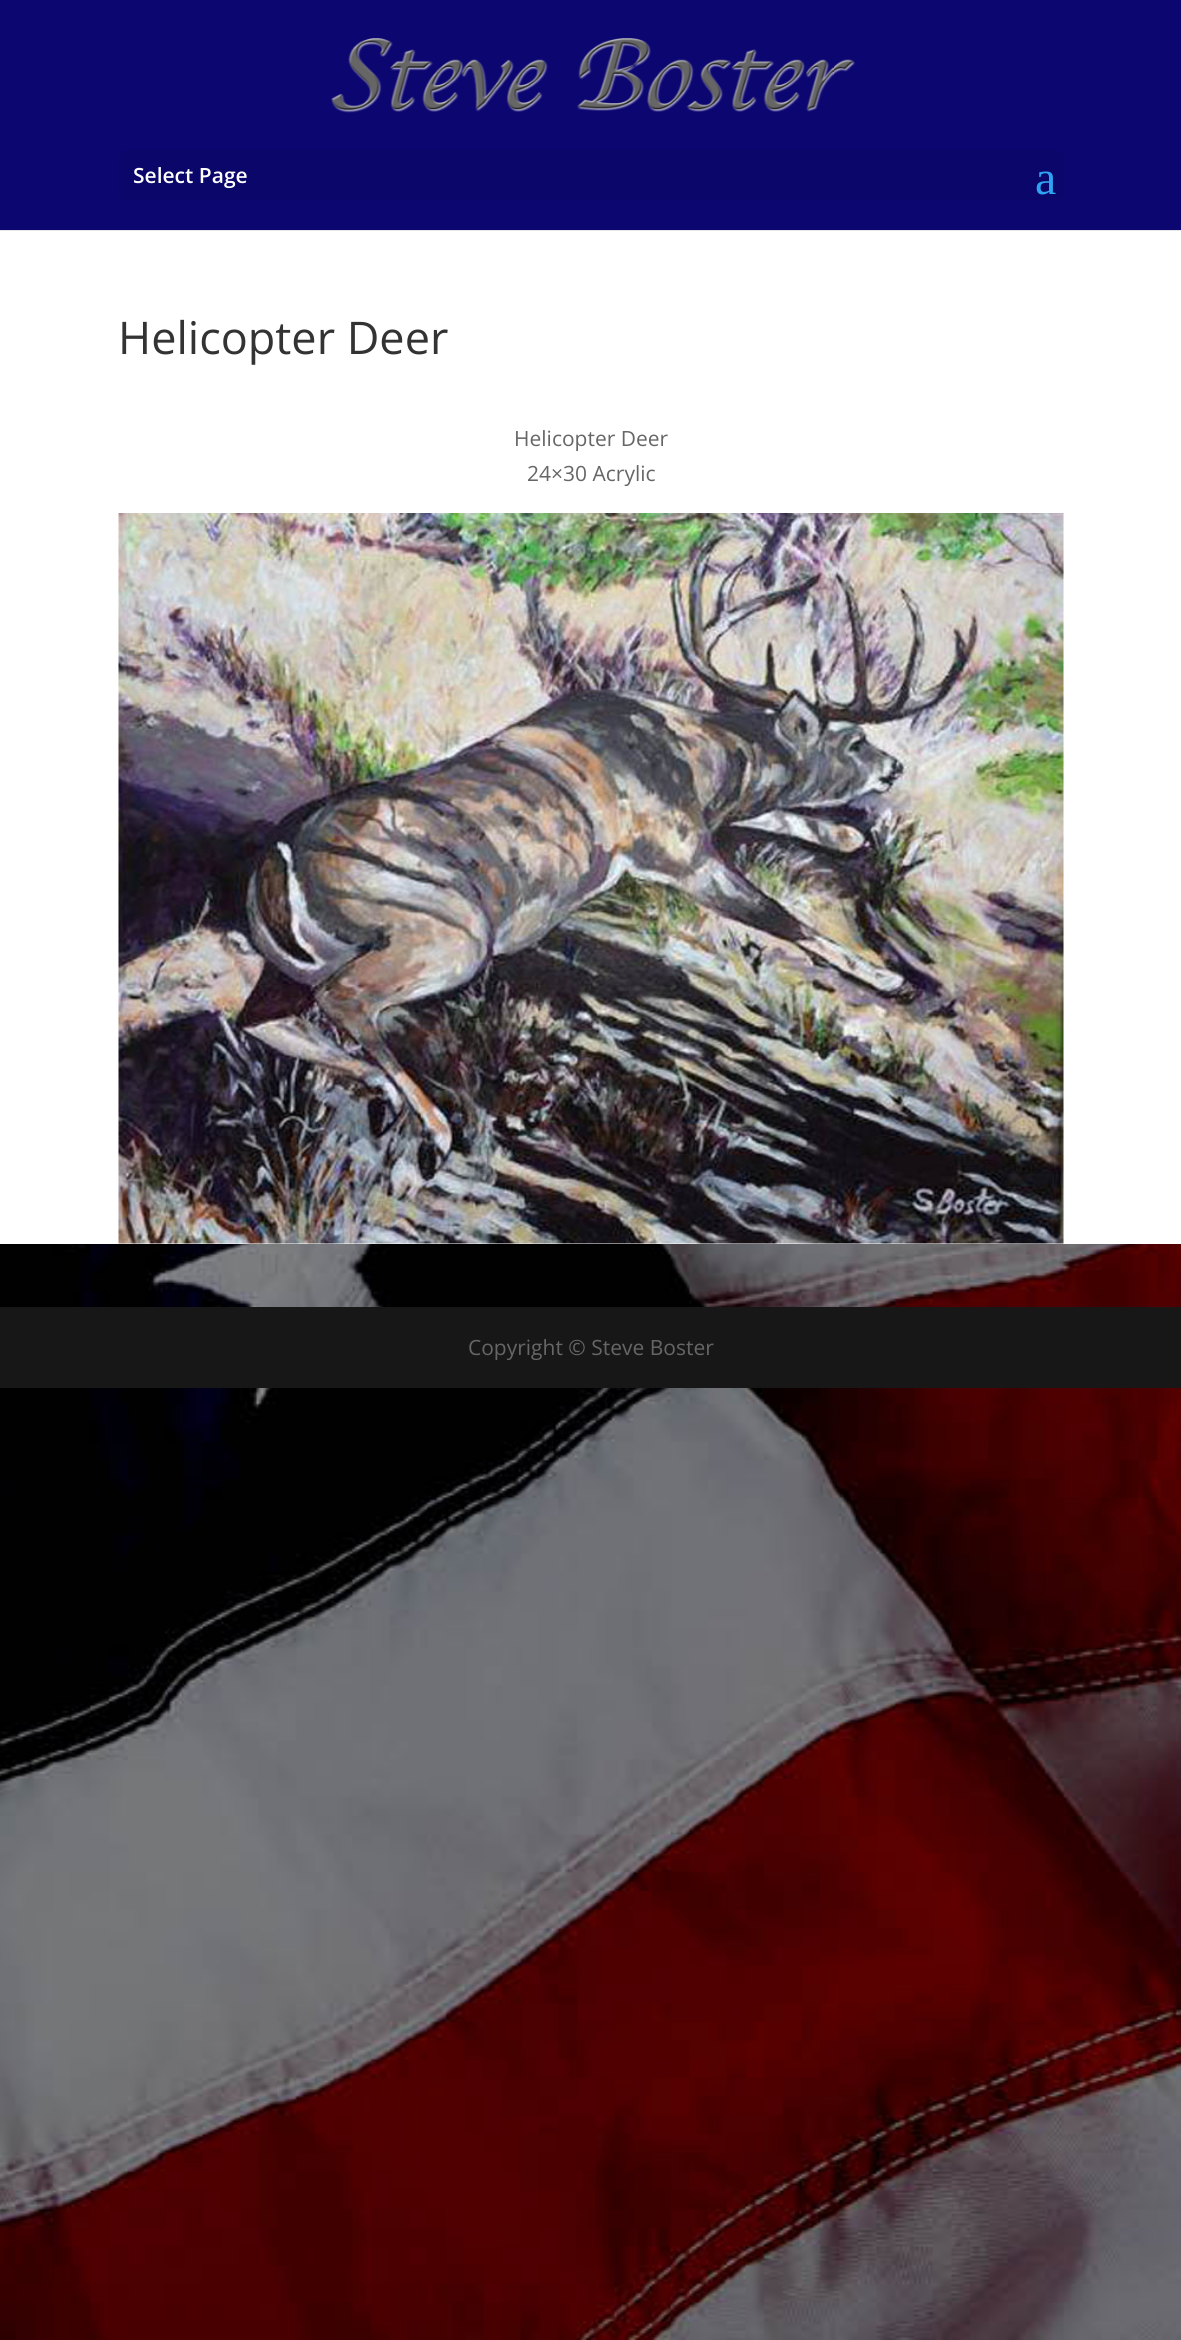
#include <cairo.h>
#include <math.h>
#include <stddef.h>

static cairo_t *ctx;

static void use_color(int r, int g, int b) {
    cairo_set_source_rgb(ctx, r / 255.0, g / 255.0, b / 255.0);
}

static void round_rect(double x, double y, double w, double h, double r) {
    cairo_new_sub_path(ctx);
    cairo_arc(ctx, x + w - r, y + h - r, r, 0, M_PI / 2);
    cairo_arc(ctx, x + r, y + h - r, r, M_PI / 2, M_PI);
    cairo_arc(ctx, x + r, y + r, r, M_PI, 1.5 * M_PI);
    cairo_arc(ctx, x + w - r, y + r, r, 1.5 * M_PI, 2 * M_PI);
    cairo_close_path(ctx);
}

static void picture(const char *path, double x, double y, double w, double h) {
    cairo_surface_t *image = cairo_image_surface_create_from_png(path);
    cairo_save(ctx);
    cairo_set_source_surface(ctx, image, x, y);
    cairo_rectangle(ctx, x, y, w, h);
    cairo_fill(ctx);
    cairo_restore(ctx);
    cairo_surface_destroy(image);
}

int main(void) {
    cairo_surface_t *surface = cairo_image_surface_create(CAIRO_FORMAT_RGB24, 1181, 2340);
    ctx = cairo_create(surface);
    cairo_font_options_t *options = cairo_font_options_create();
    cairo_font_options_set_hint_metrics(options, CAIRO_HINT_METRICS_OFF);
    cairo_font_options_set_hint_style(options, CAIRO_HINT_STYLE_NONE);
    cairo_set_font_options(ctx, options);
    cairo_set_miter_limit(ctx, 4);
    use_color(255, 255, 255);
    cairo_paint(ctx);
    picture("img1.png", 0, 1244, 1181, 1096);
    use_color(230, 230, 230);
    cairo_rectangle(ctx, 0, 230, 1181, 1);
    cairo_fill(ctx);
    use_color(12, 6, 112);
    cairo_rectangle(ctx, 0, 0, 1181, 230);
    cairo_fill(ctx);
    picture("img2.png", 331, 38, 524, 75);
    use_color(11, 6, 106);
    round_rect(119, 150, 945, 50, 8);
    cairo_fill(ctx);
    cairo_select_font_face(ctx, "Open Sans SemiBold", CAIRO_FONT_SLANT_NORMAL, CAIRO_FONT_WEIGHT_NORMAL);
    cairo_set_font_size(ctx, 21);
    use_color(255, 255, 255);
    cairo_move_to(ctx, 133, 183);
    cairo_show_text(ctx, "Select Page");
    cairo_select_font_face(ctx, "Liberation Serif", CAIRO_FONT_SLANT_NORMAL, CAIRO_FONT_WEIGHT_NORMAL);
    cairo_set_font_size(ctx, 48);
    use_color(46, 163, 242);
    cairo_move_to(ctx, 1035, 194);
    cairo_show_text(ctx, "a");
    cairo_select_font_face(ctx, "Open Sans", CAIRO_FONT_SLANT_NORMAL, CAIRO_FONT_WEIGHT_NORMAL);
    cairo_set_font_size(ctx, 45);
    use_color(51, 51, 51);
    cairo_move_to(ctx, 118, 354);
    cairo_show_text(ctx, "Helicopter Deer");
    cairo_set_font_size(ctx, 21);
    use_color(102, 102, 102);
    cairo_move_to(ctx, 514, 446);
    cairo_show_text(ctx, "Helicopter Deer");
    cairo_move_to(ctx, 527, 481);
    cairo_show_text(ctx, "24×30 Acrylic");
    picture("img3.png", 118, 513, 946, 731);
    use_color(23, 23, 23);
    cairo_rectangle(ctx, 0, 1307, 1181, 81);
    cairo_fill(ctx);
    use_color(102, 102, 102);
    cairo_move_to(ctx, 468, 1355);
    cairo_show_text(ctx, "Copyright © Steve Boster");
    cairo_surface_write_to_png(surface, "result.png");
    cairo_font_options_destroy(options);
    cairo_destroy(ctx);
    cairo_surface_destroy(surface);
    return 0;
}
